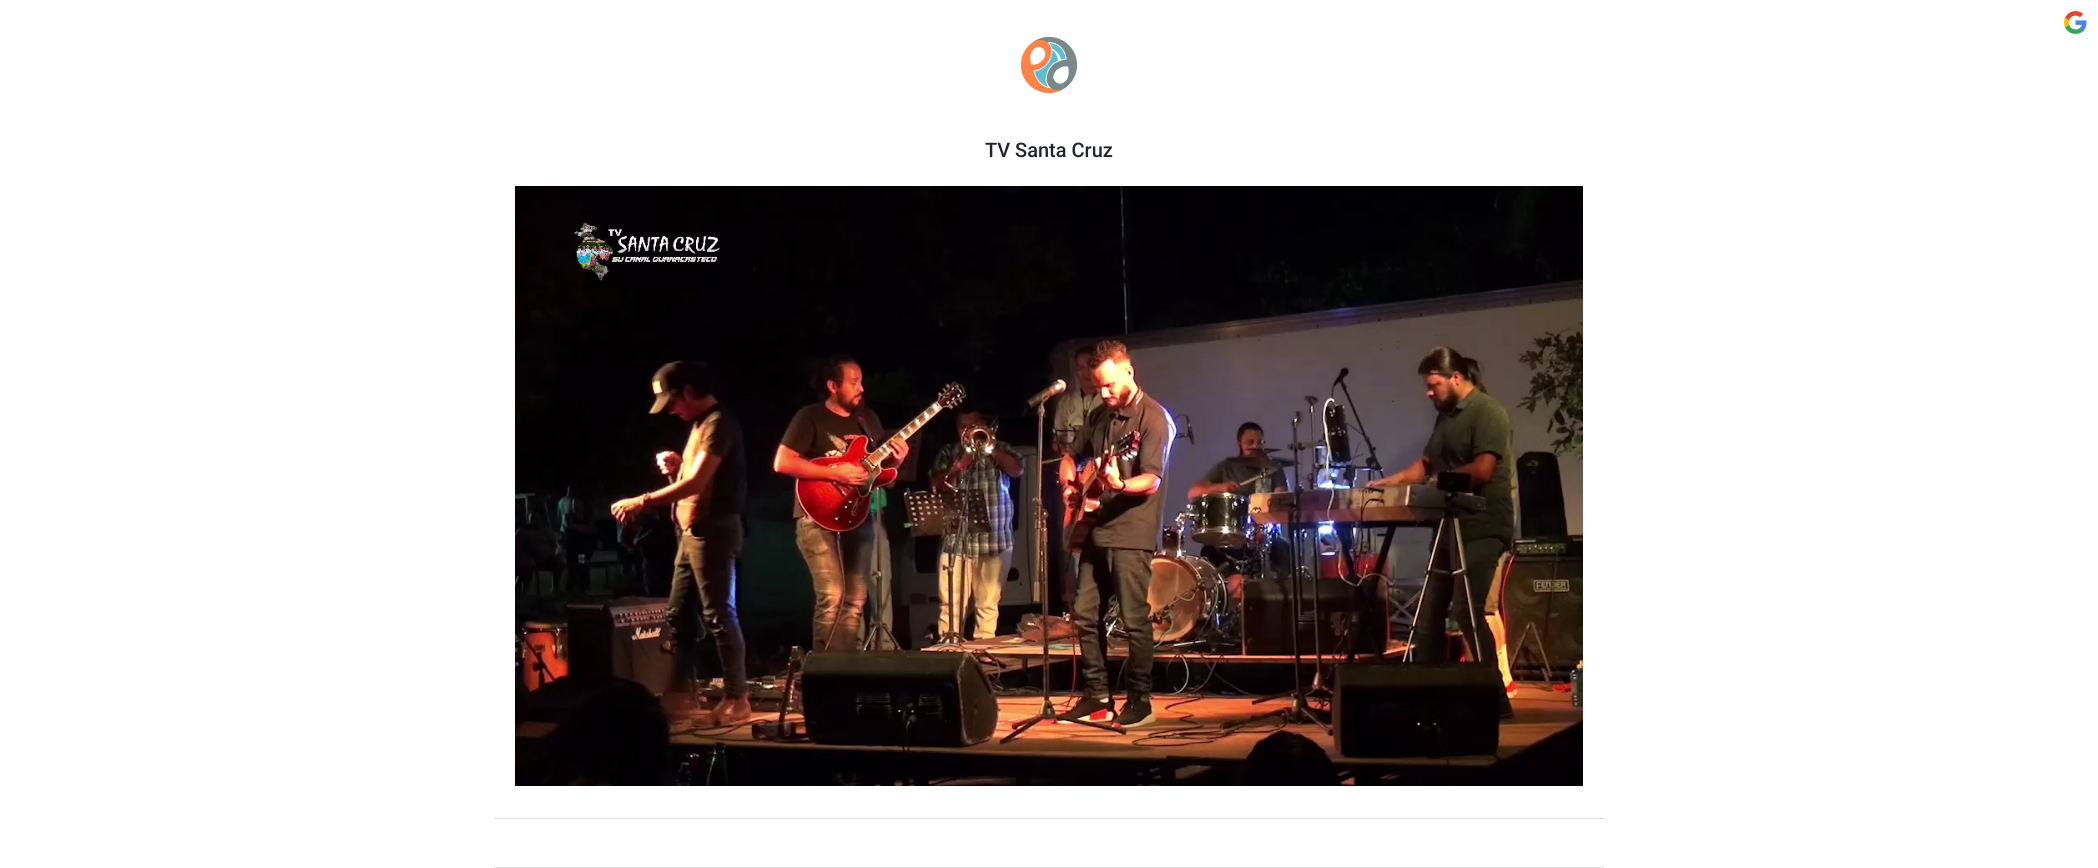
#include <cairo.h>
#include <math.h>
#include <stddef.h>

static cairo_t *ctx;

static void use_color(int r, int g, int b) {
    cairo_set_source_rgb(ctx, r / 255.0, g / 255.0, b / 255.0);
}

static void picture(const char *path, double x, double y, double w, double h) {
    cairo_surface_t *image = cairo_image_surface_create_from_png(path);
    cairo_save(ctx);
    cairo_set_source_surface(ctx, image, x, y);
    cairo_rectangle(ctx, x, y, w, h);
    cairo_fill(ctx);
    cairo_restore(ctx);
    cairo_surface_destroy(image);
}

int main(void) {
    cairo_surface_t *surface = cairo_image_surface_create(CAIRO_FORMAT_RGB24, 2098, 868);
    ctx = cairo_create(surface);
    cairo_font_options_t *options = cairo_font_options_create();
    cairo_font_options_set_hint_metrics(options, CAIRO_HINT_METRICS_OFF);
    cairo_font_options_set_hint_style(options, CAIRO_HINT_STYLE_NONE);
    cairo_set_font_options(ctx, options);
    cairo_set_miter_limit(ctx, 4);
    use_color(255, 255, 255);
    cairo_paint(ctx);
    picture("img1.png", 2064, 11, 23, 23);
    picture("img2.png", 1020, 36, 58, 58);
    cairo_select_font_face(ctx, "Roboto Medium", CAIRO_FONT_SLANT_NORMAL, CAIRO_FONT_WEIGHT_NORMAL);
    cairo_set_font_size(ctx, 20);
    use_color(33, 37, 41);
    cairo_move_to(ctx, 985, 157);
    cairo_show_text(ctx, "TV Santa Cruz");
    picture("img3.png", 515, 186, 1068, 600);
    use_color(223, 223, 223);
    cairo_rectangle(ctx, 494, 818, 1110, 1);
    cairo_fill(ctx);
    cairo_rectangle(ctx, 494, 867, 1110, 1);
    cairo_fill(ctx);
    cairo_surface_write_to_png(surface, "result.png");
    cairo_font_options_destroy(options);
    cairo_destroy(ctx);
    cairo_surface_destroy(surface);
    return 0;
}
